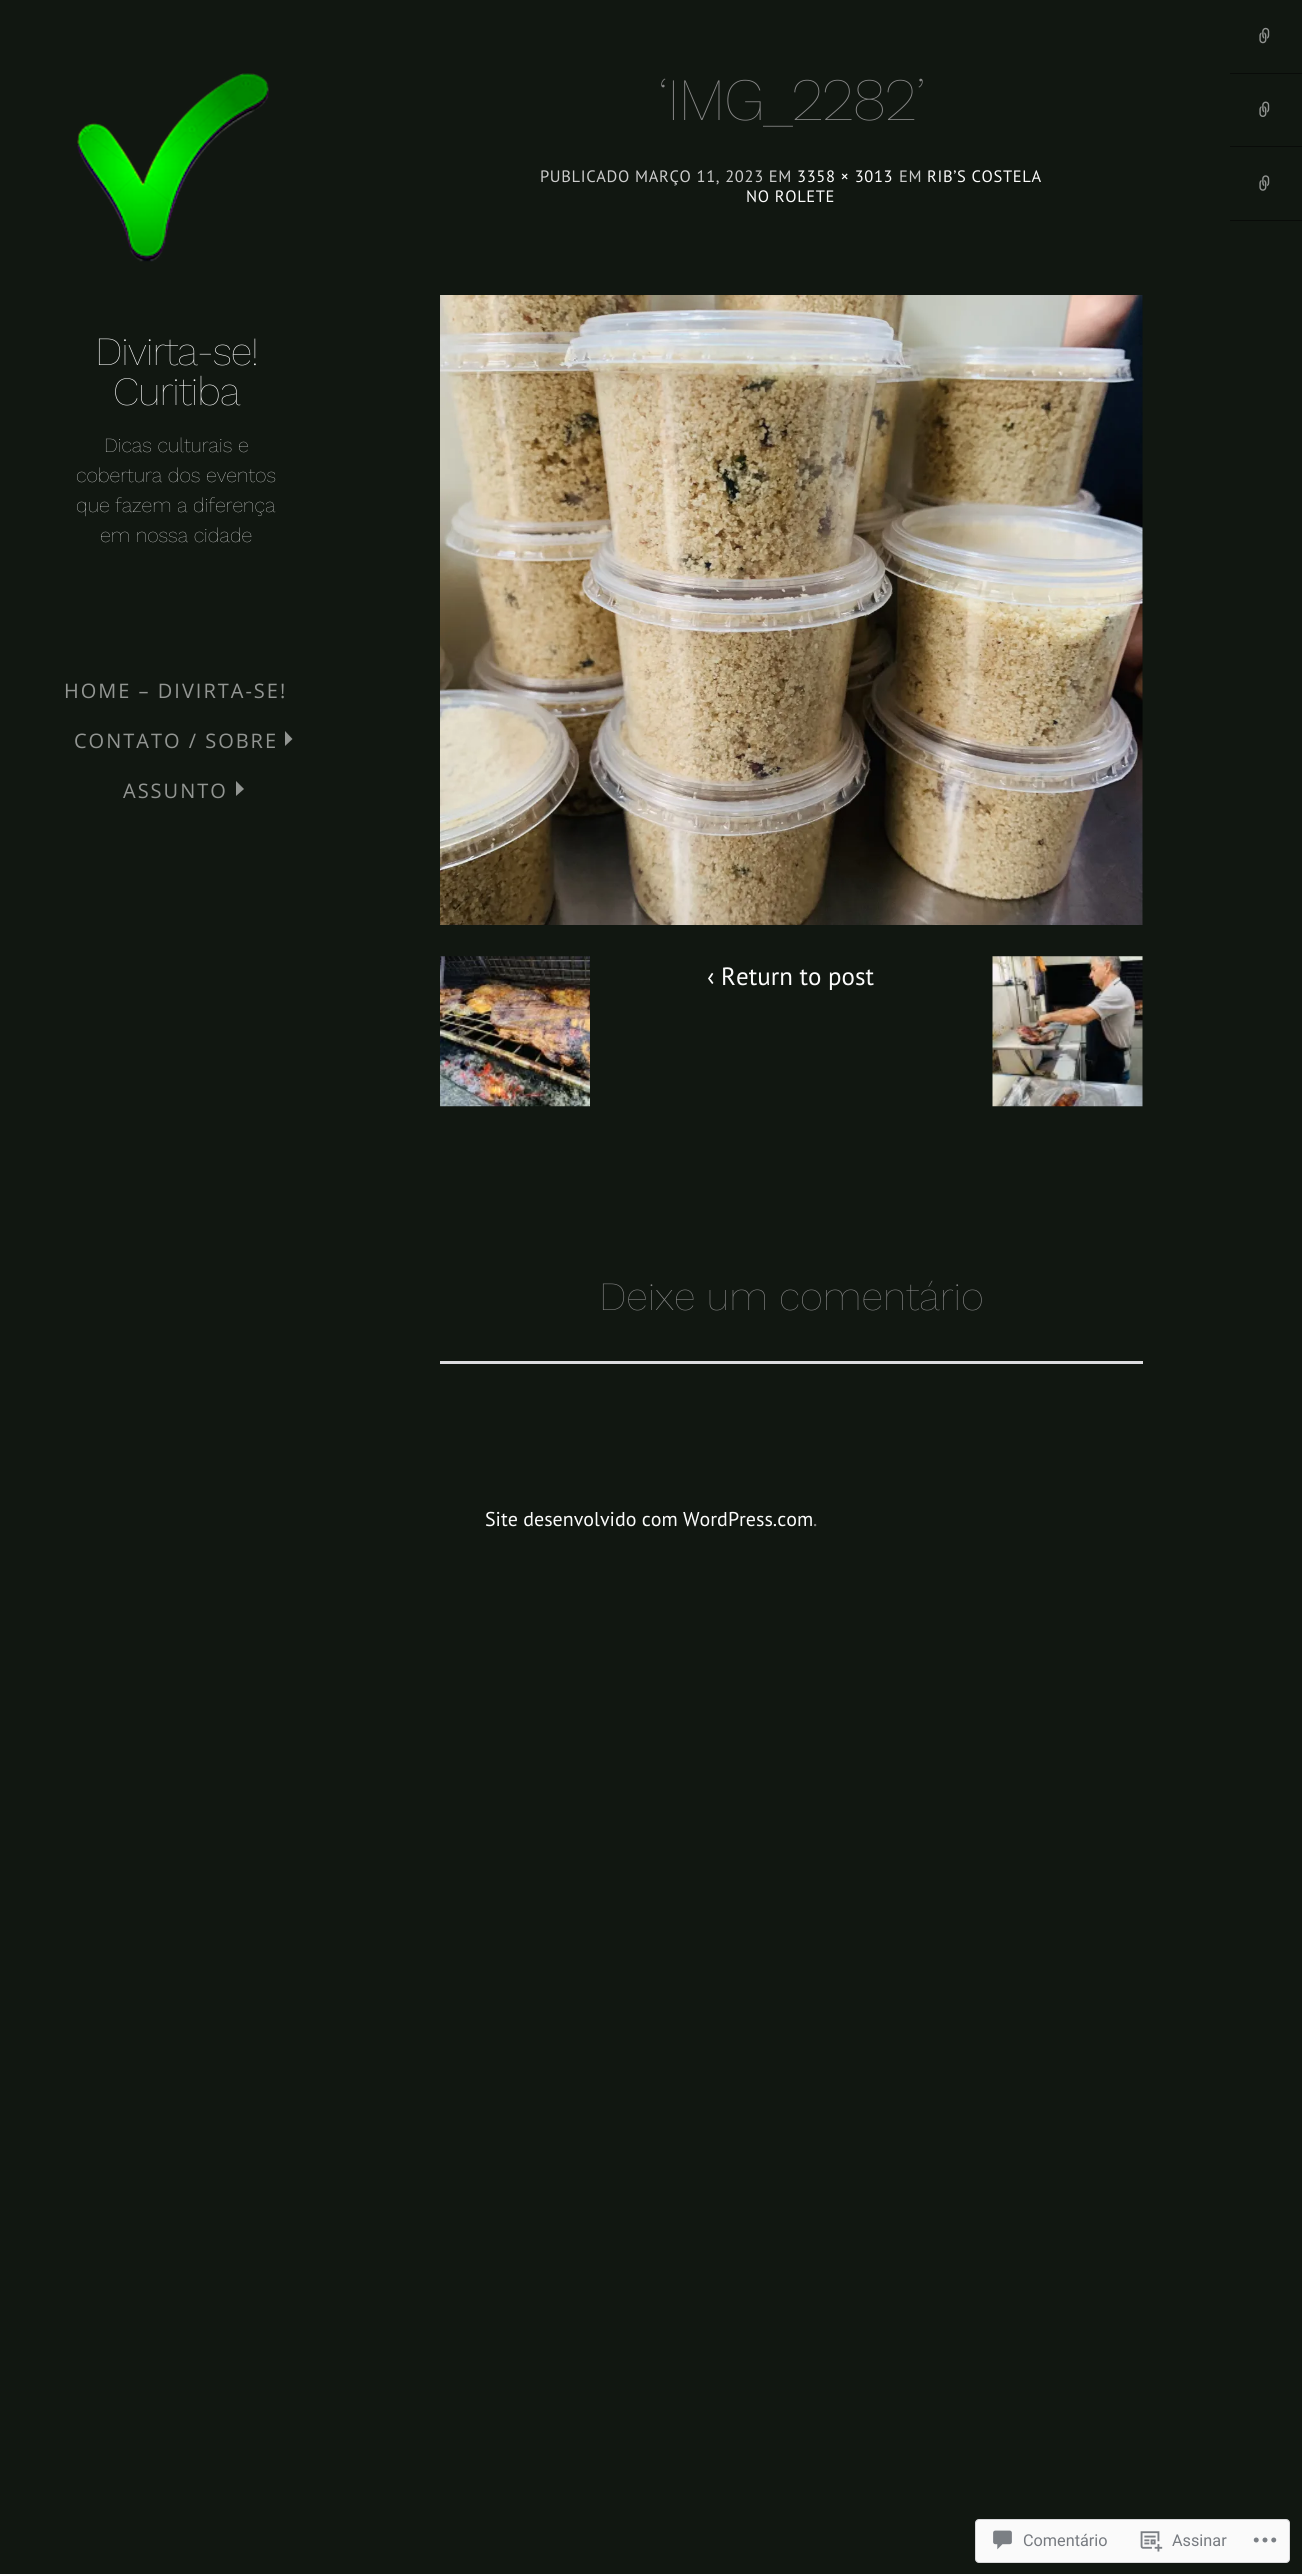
#include <cairo.h>
#include <math.h>
#include <stddef.h>

static cairo_t *ctx;

static void use_color(int r, int g, int b) {
    cairo_set_source_rgb(ctx, r / 255.0, g / 255.0, b / 255.0);
}

static void spaced_text(double x, double y, const char *s, double letter, double word) {
    cairo_move_to(ctx, x, y);
    while (*s) {
        char ch[5] = {0};
        int n = 0;
        do ch[n++] = *s++; while ((*s & 0xC0) == 0x80);
        cairo_show_text(ctx, ch);
        cairo_rel_move_to(ctx, letter + word * (*ch == ' '), 0);
    }
}

static void round_rect(double x, double y, double w, double h, double r) {
    cairo_new_sub_path(ctx);
    cairo_arc(ctx, x + w - r, y + h - r, r, 0, M_PI / 2);
    cairo_arc(ctx, x + r, y + h - r, r, M_PI / 2, M_PI);
    cairo_arc(ctx, x + r, y + r, r, M_PI, 1.5 * M_PI);
    cairo_arc(ctx, x + w - r, y + r, r, 1.5 * M_PI, 2 * M_PI);
    cairo_close_path(ctx);
}

static void picture(const char *path, double x, double y, double w, double h) {
    cairo_surface_t *image = cairo_image_surface_create_from_png(path);
    cairo_save(ctx);
    cairo_set_source_surface(ctx, image, x, y);
    cairo_rectangle(ctx, x, y, w, h);
    cairo_fill(ctx);
    cairo_restore(ctx);
    cairo_surface_destroy(image);
}

int main(void) {
    cairo_surface_t *surface = cairo_image_surface_create(CAIRO_FORMAT_RGB24, 1302, 2574);
    ctx = cairo_create(surface);
    cairo_font_options_t *options = cairo_font_options_create();
    cairo_font_options_set_hint_metrics(options, CAIRO_HINT_METRICS_OFF);
    cairo_font_options_set_hint_style(options, CAIRO_HINT_STYLE_NONE);
    cairo_set_font_options(ctx, options);
    cairo_set_miter_limit(ctx, 4);
    use_color(17, 23, 17);
    cairo_paint(ctx);
    picture("img1.png", 77, 73, 192, 189);
    cairo_select_font_face(ctx, "Work Sans Thin", CAIRO_FONT_SLANT_NORMAL, CAIRO_FONT_WEIGHT_NORMAL);
    cairo_set_font_size(ctx, 40);
    use_color(252, 252, 252);
    spaced_text(95, 365, "Divirta-se!", -1, 0);
    spaced_text(113, 405, "Curitiba", -1, 0);
    cairo_set_font_size(ctx, 20);
    cairo_move_to(ctx, 104, 452);
    cairo_show_text(ctx, "Dicas culturais e");
    cairo_move_to(ctx, 76, 482);
    cairo_show_text(ctx, "cobertura dos eventos");
    cairo_move_to(ctx, 76, 512);
    cairo_show_text(ctx, "que fazem a diferença");
    cairo_move_to(ctx, 100, 542);
    cairo_show_text(ctx, "em nossa cidade");
    cairo_select_font_face(ctx, "Open Sans", CAIRO_FONT_SLANT_NORMAL, CAIRO_FONT_WEIGHT_NORMAL);
    use_color(146, 149, 146);
    spaced_text(64, 698, "HOME – DIVIRTA-SE!", 2, 0);
    spaced_text(74, 748, "CONTATO / SOBRE", 2, 0);
    cairo_new_path(ctx);
    cairo_move_to(ctx, 285, 746);
    cairo_line_to(ctx, 285, 731);
    cairo_line_to(ctx, 292.5, 739);
    cairo_close_path(ctx);
    cairo_fill(ctx);
    spaced_text(123, 798, "ASSUNTO", 2, 0);
    cairo_new_path(ctx);
    cairo_move_to(ctx, 236, 796);
    cairo_line_to(ctx, 236, 781);
    cairo_line_to(ctx, 244, 789);
    cairo_close_path(ctx);
    cairo_fill(ctx);
    cairo_select_font_face(ctx, "Work Sans Thin", CAIRO_FONT_SLANT_NORMAL, CAIRO_FONT_WEIGHT_NORMAL);
    cairo_set_font_size(ctx, 60);
    use_color(135, 135, 135);
    spaced_text(658, 120, "‘IMG_2282’", -1.5, 0);
    cairo_select_font_face(ctx, "PT Sans", CAIRO_FONT_SLANT_NORMAL, CAIRO_FONT_WEIGHT_NORMAL);
    cairo_set_font_size(ctx, 16.5);
    use_color(204, 204, 204);
    spaced_text(540, 182, "PUBLICADO MARÇO 11, 2023 EM", 0.65, 0);
    use_color(252, 252, 252);
    spaced_text(797, 182, "3358 × 3013", 0.65, 0);
    use_color(204, 204, 204);
    spaced_text(899, 182, "EM", 0.65, 0);
    use_color(252, 252, 252);
    spaced_text(927, 182, "RIB’S COSTELA", 0.65, 0);
    spaced_text(746, 202, "NO ROLETE", 0.65, 0);
    picture("img2.png", 440, 295, 703, 630);
    picture("img3.png", 440, 956, 150, 151);
    cairo_set_font_size(ctx, 25);
    cairo_move_to(ctx, 707, 985);
    cairo_show_text(ctx, "‹ Return to post");
    picture("img4.png", 992, 956, 151, 151);
    cairo_select_font_face(ctx, "Work Sans Thin", CAIRO_FONT_SLANT_NORMAL, CAIRO_FONT_WEIGHT_NORMAL);
    cairo_set_font_size(ctx, 40);
    use_color(135, 135, 135);
    cairo_move_to(ctx, 599, 1310);
    cairo_show_text(ctx, "Deixe um comentário");
    use_color(220, 220, 222);
    cairo_rectangle(ctx, 440, 1361, 703, 3);
    cairo_fill(ctx);
    cairo_select_font_face(ctx, "PT Sans", CAIRO_FONT_SLANT_NORMAL, CAIRO_FONT_WEIGHT_NORMAL);
    cairo_set_font_size(ctx, 20);
    use_color(252, 252, 252);
    cairo_move_to(ctx, 485, 1526);
    cairo_show_text(ctx, "Site desenvolvido com WordPress.com");
    use_color(135, 135, 135);
    cairo_move_to(ctx, 813, 1526);
    cairo_show_text(ctx, ".");
    use_color(9, 11, 9);
    cairo_rectangle(ctx, 1230, 73, 72, 1);
    cairo_fill(ctx);
    picture("img5.png", 1259, 27, 11, 17);
    cairo_rectangle(ctx, 1230, 146, 72, 1);
    cairo_fill(ctx);
    picture("img6.png", 1259, 101, 11, 16);
    cairo_rectangle(ctx, 1230, 220, 72, 1);
    cairo_fill(ctx);
    picture("img7.png", 1259, 175, 11, 16);
    use_color(250, 250, 250);
    round_rect(975.5, 2519.5, 314, 43, 3.5);
    cairo_fill_preserve(ctx);
    use_color(216, 216, 218);
    cairo_set_line_width(ctx, 1);
    cairo_stroke(ctx);
    picture("img8.png", 993, 2530, 19, 20);
    cairo_select_font_face(ctx, "Roboto", CAIRO_FONT_SLANT_NORMAL, CAIRO_FONT_WEIGHT_NORMAL);
    cairo_set_font_size(ctx, 16.25);
    use_color(118, 122, 128);
    cairo_move_to(ctx, 1023, 2546);
    cairo_show_text(ctx, "Comentário");
    picture("img9.png", 1140, 2531, 23, 21);
    cairo_move_to(ctx, 1172, 2546);
    cairo_show_text(ctx, "Assinar");
    picture("img10.png", 1253, 2537, 24, 6);
    cairo_surface_write_to_png(surface, "result.png");
    cairo_font_options_destroy(options);
    cairo_destroy(ctx);
    cairo_surface_destroy(surface);
    return 0;
}
